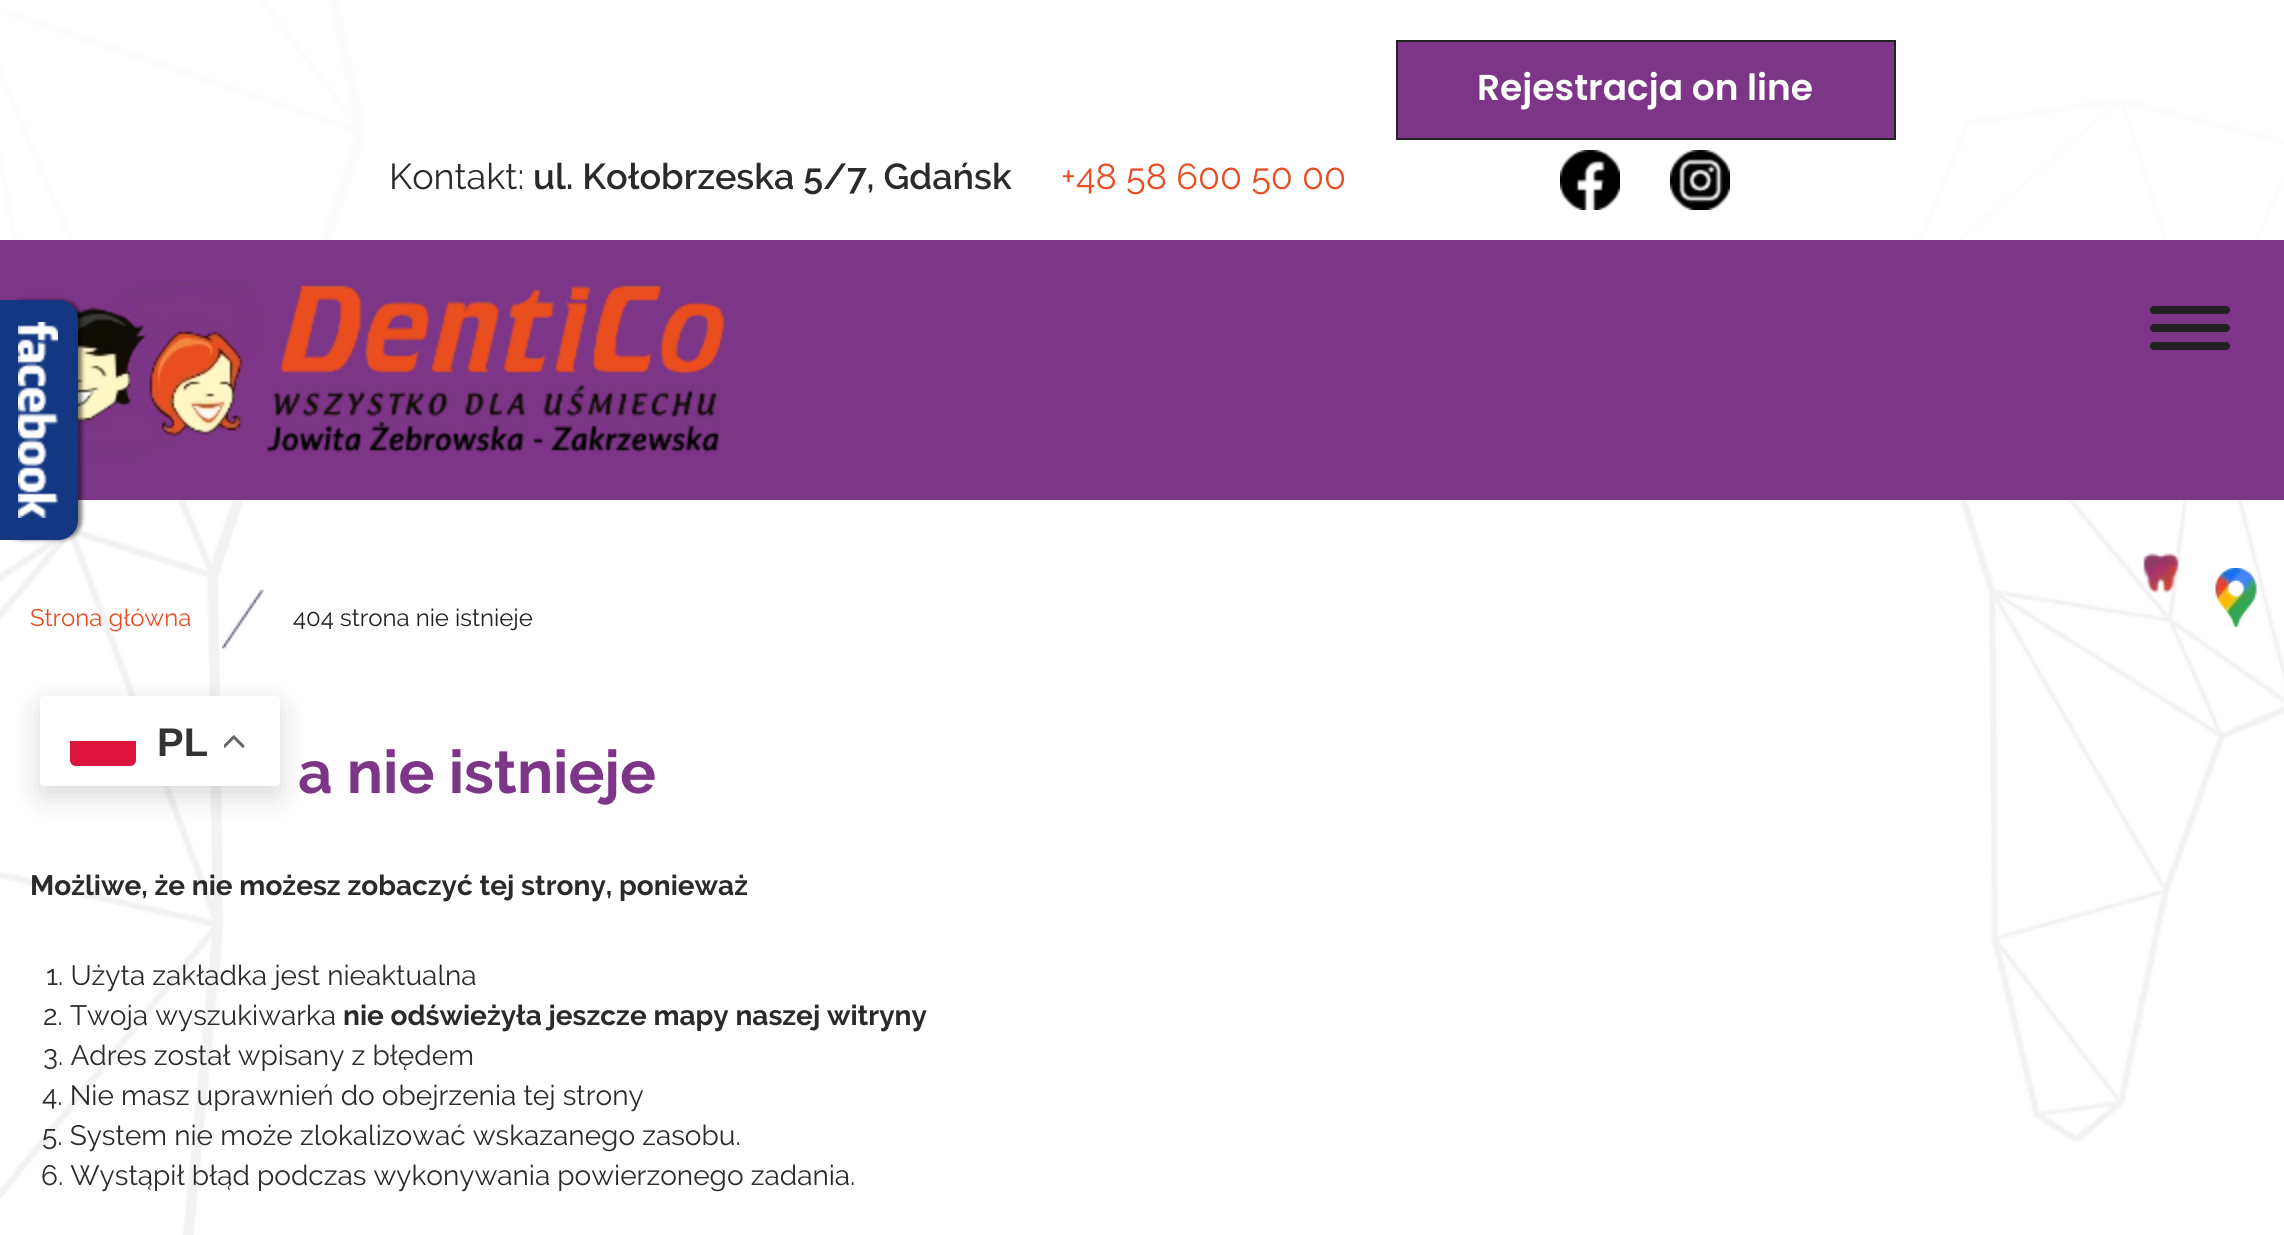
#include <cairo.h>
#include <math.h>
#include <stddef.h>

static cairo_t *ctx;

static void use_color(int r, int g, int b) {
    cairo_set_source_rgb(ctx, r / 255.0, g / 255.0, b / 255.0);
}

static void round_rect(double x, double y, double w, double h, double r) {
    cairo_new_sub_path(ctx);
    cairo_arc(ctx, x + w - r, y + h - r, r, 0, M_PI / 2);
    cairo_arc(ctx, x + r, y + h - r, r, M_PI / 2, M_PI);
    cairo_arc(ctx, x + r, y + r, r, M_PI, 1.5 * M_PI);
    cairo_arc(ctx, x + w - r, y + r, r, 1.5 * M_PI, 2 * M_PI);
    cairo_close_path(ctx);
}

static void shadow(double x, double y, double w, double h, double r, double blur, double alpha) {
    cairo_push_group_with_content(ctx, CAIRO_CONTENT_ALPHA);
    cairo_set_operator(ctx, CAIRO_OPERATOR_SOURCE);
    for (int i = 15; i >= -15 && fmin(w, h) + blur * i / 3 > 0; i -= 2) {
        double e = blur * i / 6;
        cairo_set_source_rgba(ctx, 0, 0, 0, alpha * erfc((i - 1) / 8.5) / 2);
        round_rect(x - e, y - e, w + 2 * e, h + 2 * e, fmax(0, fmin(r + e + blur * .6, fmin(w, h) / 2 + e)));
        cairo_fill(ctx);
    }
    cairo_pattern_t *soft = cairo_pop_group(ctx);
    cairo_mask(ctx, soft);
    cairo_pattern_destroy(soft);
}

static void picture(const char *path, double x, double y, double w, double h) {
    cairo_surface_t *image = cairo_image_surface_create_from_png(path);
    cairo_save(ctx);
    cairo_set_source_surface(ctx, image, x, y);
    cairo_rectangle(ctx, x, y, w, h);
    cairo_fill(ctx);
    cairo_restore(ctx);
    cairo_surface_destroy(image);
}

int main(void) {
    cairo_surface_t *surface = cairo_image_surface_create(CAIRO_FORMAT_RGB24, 2284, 1235);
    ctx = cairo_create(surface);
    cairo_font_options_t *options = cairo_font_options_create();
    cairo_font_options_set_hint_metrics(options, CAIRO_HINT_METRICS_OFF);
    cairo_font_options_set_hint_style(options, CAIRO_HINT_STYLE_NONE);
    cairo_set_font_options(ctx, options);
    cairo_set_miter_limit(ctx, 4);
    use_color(255, 255, 255);
    cairo_paint(ctx);
    picture("img1.png", 0, 0, 2284, 1235);
    cairo_set_source_rgba(ctx, 1, 1, 1, 0.8);
    cairo_rectangle(ctx, 0, 0, 2284, 240);
    cairo_fill(ctx);
    use_color(125, 53, 135);
    cairo_rectangle(ctx, 1397, 41, 498, 98);
    cairo_fill_preserve(ctx);
    use_color(33, 33, 33);
    cairo_stroke(ctx);
    cairo_select_font_face(ctx, "Poppins SemiBold", CAIRO_FONT_SLANT_NORMAL, CAIRO_FONT_WEIGHT_NORMAL);
    cairo_set_font_size(ctx, 36);
    use_color(255, 255, 255);
    cairo_move_to(ctx, 1477, 100);
    cairo_show_text(ctx, "Rejestracja on line");
    picture("img2.png", 1560, 150, 60, 60);
    picture("img3.png", 1670, 150, 60, 60);
    cairo_select_font_face(ctx, "Raleway", CAIRO_FONT_SLANT_NORMAL, CAIRO_FONT_WEIGHT_NORMAL);
    use_color(43, 41, 43);
    cairo_move_to(ctx, 389, 189);
    cairo_show_text(ctx, "Kontakt:");
    cairo_select_font_face(ctx, "Raleway SemiBold", CAIRO_FONT_SLANT_NORMAL, CAIRO_FONT_WEIGHT_NORMAL);
    cairo_move_to(ctx, 533, 189);
    cairo_show_text(ctx, "ul. Kołobrzeska 5/7, Gdańsk");
    cairo_select_font_face(ctx, "Raleway", CAIRO_FONT_SLANT_NORMAL, CAIRO_FONT_WEIGHT_NORMAL);
    use_color(235, 75, 34);
    cairo_move_to(ctx, 1061, 189);
    cairo_show_text(ctx, "+48 58 600 50 00");
    use_color(125, 53, 135);
    cairo_rectangle(ctx, 0, 240, 2284, 260);
    cairo_fill(ctx);
    picture("img4.png", 76, 282, 649, 176);
    use_color(33, 33, 33);
    round_rect(2150, 306, 80, 8, 4);
    cairo_fill(ctx);
    round_rect(2150, 324, 80, 8, 4);
    cairo_fill(ctx);
    round_rect(2150, 342, 80, 8, 4);
    cairo_fill(ctx);
    cairo_set_font_size(ctx, 24);
    use_color(235, 75, 34);
    cairo_move_to(ctx, 30, 626);
    cairo_show_text(ctx, "Strona główna");
    picture("img5.png", 222, 590, 42, 59);
    use_color(33, 33, 33);
    cairo_move_to(ctx, 293, 626);
    cairo_show_text(ctx, "404 strona nie istnieje");
    picture("img6.png", 2143, 553, 36, 40);
    picture("img7.png", 2215, 568, 42, 60);
    cairo_select_font_face(ctx, "Raleway", CAIRO_FONT_SLANT_NORMAL, CAIRO_FONT_WEIGHT_BOLD);
    cairo_set_font_size(ctx, 60);
    use_color(125, 53, 135);
    cairo_move_to(ctx, 298, 793);
    cairo_show_text(ctx, "a nie istnieje");
    cairo_set_font_size(ctx, 28);
    use_color(43, 41, 43);
    cairo_move_to(ctx, 30, 895);
    cairo_show_text(ctx, "Możliwe, że nie możesz zobaczyć tej strony, ponieważ");
    cairo_select_font_face(ctx, "Raleway", CAIRO_FONT_SLANT_NORMAL, CAIRO_FONT_WEIGHT_NORMAL);
    cairo_move_to(ctx, 46, 985);
    cairo_show_text(ctx, "1. Użyta zakładka jest nieaktualna");
    cairo_move_to(ctx, 43, 1025);
    cairo_show_text(ctx, "2. Twoja wyszukiwarka");
    cairo_select_font_face(ctx, "Raleway", CAIRO_FONT_SLANT_NORMAL, CAIRO_FONT_WEIGHT_BOLD);
    cairo_move_to(ctx, 343, 1025);
    cairo_show_text(ctx, "nie odświeżyła jeszcze mapy naszej witryny");
    cairo_select_font_face(ctx, "Raleway", CAIRO_FONT_SLANT_NORMAL, CAIRO_FONT_WEIGHT_NORMAL);
    cairo_move_to(ctx, 43, 1065);
    cairo_show_text(ctx, "3. Adres został wpisany z błędem");
    cairo_move_to(ctx, 42, 1105);
    cairo_show_text(ctx, "4. Nie masz uprawnień do obejrzenia tej strony");
    cairo_move_to(ctx, 42, 1145);
    cairo_show_text(ctx, "5. System nie może zlokalizować wskazanego zasobu.");
    cairo_move_to(ctx, 41, 1185);
    cairo_show_text(ctx, "6. Wystąpił błąd podczas wykonywania powierzonego zadania.");
    use_color(0, 0, 0);
    shadow(2, 300, 80, 240, 20, 2, 0.5);
    use_color(19, 55, 131);
    cairo_new_path(ctx);
    cairo_move_to(ctx, -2, 300);
    cairo_line_to(ctx, 58, 300);
    cairo_curve_to(ctx, 69, 300, 78, 309, 78, 320);
    cairo_line_to(ctx, 78, 520);
    cairo_curve_to(ctx, 78, 531, 69, 540, 58, 540);
    cairo_line_to(ctx, -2, 540);
    cairo_close_path(ctx);
    cairo_fill(ctx);
    picture("img8.png", 18, 322, 40, 196);
    use_color(0, 0, 0);
    shadow(40, 706, 240, 90, 4, 15, 0.15);
    use_color(255, 255, 255);
    round_rect(40, 696, 240, 90, 4);
    cairo_fill(ctx);
    use_color(220, 20, 60);
    cairo_new_path(ctx);
    cairo_move_to(ctx, 70, 741);
    cairo_line_to(ctx, 136, 741);
    cairo_line_to(ctx, 136, 760);
    cairo_curve_to(ctx, 136, 763.5, 133.5, 766, 130, 766);
    cairo_line_to(ctx, 76, 766);
    cairo_curve_to(ctx, 72.5, 766, 70, 763.5, 70, 760);
    cairo_close_path(ctx);
    cairo_fill(ctx);
    cairo_select_font_face(ctx, "Liberation Sans", CAIRO_FONT_SLANT_NORMAL, CAIRO_FONT_WEIGHT_BOLD);
    cairo_set_font_size(ctx, 40);
    use_color(51, 51, 51);
    cairo_move_to(ctx, 157, 756);
    cairo_show_text(ctx, "PL");
    picture("img9.png", 224, 735, 21, 13);
    cairo_surface_write_to_png(surface, "result.png");
    cairo_font_options_destroy(options);
    cairo_destroy(ctx);
    cairo_surface_destroy(surface);
    return 0;
}
